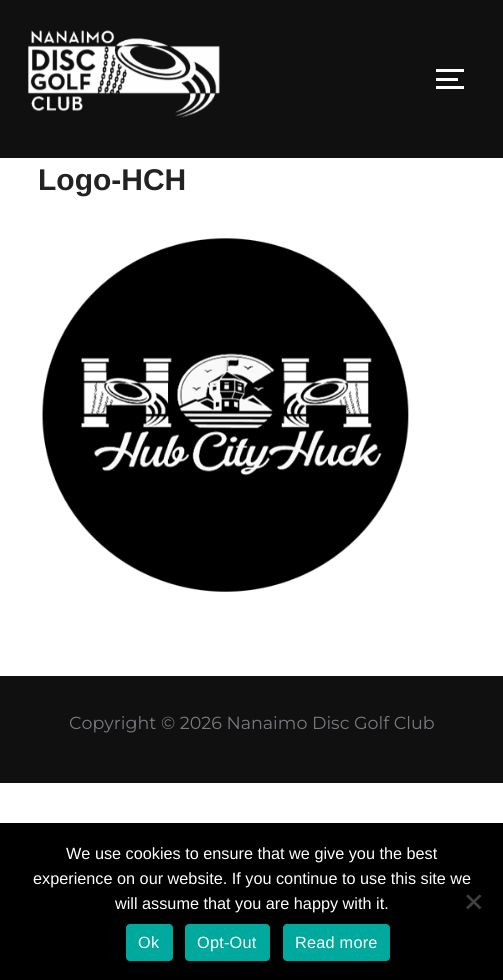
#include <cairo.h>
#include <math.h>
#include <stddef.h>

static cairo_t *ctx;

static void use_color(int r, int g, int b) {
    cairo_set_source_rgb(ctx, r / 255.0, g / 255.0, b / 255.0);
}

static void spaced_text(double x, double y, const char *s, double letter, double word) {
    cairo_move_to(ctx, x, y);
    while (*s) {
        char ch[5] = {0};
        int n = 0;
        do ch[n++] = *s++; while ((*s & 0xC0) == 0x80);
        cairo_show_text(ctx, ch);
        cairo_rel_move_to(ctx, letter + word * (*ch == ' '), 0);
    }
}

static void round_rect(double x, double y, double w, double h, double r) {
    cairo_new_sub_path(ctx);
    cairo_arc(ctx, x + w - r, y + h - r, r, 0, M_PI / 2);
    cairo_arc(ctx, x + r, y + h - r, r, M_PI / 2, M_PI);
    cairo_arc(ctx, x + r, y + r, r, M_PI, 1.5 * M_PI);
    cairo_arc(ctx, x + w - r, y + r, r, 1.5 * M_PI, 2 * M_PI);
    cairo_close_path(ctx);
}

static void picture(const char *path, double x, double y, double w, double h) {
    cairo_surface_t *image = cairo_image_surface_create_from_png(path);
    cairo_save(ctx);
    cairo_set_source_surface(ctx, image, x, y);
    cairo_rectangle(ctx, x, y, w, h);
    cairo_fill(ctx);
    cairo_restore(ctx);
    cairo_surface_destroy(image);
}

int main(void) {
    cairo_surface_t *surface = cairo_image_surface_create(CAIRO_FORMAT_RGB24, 503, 980);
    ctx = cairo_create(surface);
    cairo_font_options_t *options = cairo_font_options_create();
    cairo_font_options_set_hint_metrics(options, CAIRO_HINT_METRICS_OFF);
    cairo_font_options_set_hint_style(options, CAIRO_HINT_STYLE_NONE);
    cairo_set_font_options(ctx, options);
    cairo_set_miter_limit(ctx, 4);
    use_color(255, 255, 255);
    cairo_paint(ctx);
    use_color(16, 16, 16);
    cairo_rectangle(ctx, 0, 0, 503, 158);
    cairo_fill(ctx);
    picture("img1.png", 28, 30, 192, 88);
    use_color(255, 255, 255);
    cairo_rectangle(ctx, 436, 69, 28, 3);
    cairo_fill(ctx);
    cairo_rectangle(ctx, 436, 78, 22, 3);
    cairo_fill(ctx);
    cairo_rectangle(ctx, 436, 86, 28, 3);
    cairo_fill(ctx);
    cairo_select_font_face(ctx, "Liberation Sans", CAIRO_FONT_SLANT_NORMAL, CAIRO_FONT_WEIGHT_BOLD);
    cairo_set_font_size(ctx, 30);
    use_color(34, 34, 34);
    cairo_move_to(ctx, 38, 190);
    cairo_show_text(ctx, "Logo-HCH");
    picture("img2.png", 42, 238, 367, 354);
    use_color(16, 16, 16);
    cairo_rectangle(ctx, 0, 676, 503, 107);
    cairo_fill(ctx);
    cairo_select_font_face(ctx, "Montserrat Thin", CAIRO_FONT_SLANT_NORMAL, CAIRO_FONT_WEIGHT_NORMAL);
    cairo_set_font_size(ctx, 17.5);
    use_color(120, 120, 127);
    cairo_move_to(ctx, 69, 729);
    cairo_show_text(ctx, "Copyright © 2026 Nanaimo Disc Golf Club");
    use_color(0, 0, 0);
    cairo_rectangle(ctx, 0, 823, 503, 157);
    cairo_fill(ctx);
    cairo_select_font_face(ctx, "Liberation Sans", CAIRO_FONT_SLANT_NORMAL, CAIRO_FONT_WEIGHT_NORMAL);
    cairo_set_font_size(ctx, 16.25);
    use_color(255, 255, 255);
    cairo_move_to(ctx, 66, 859);
    cairo_show_text(ctx, "We use cookies to ensure that we give you the best");
    cairo_move_to(ctx, 33, 884);
    cairo_show_text(ctx, "experience on our website. If you continue to use this site we");
    cairo_move_to(ctx, 115, 909);
    cairo_show_text(ctx, "will assume that you are happy with it.");
    use_color(64, 64, 64);
    cairo_new_path(ctx);
    cairo_move_to(ctx, 479.5, 894.5);
    cairo_line_to(ctx, 481.5, 896);
    cairo_line_to(ctx, 468, 909.5);
    cairo_line_to(ctx, 466, 907.5);
    cairo_close_path(ctx);
    cairo_fill(ctx);
    cairo_new_path(ctx);
    cairo_move_to(ctx, 466, 896);
    cairo_line_to(ctx, 468, 894.5);
    cairo_line_to(ctx, 481.5, 907.5);
    cairo_line_to(ctx, 479.5, 909.5);
    cairo_close_path(ctx);
    cairo_fill(ctx);
    use_color(0, 169, 157);
    round_rect(126, 924, 47, 37, 4);
    cairo_fill(ctx);
    use_color(255, 255, 255);
    spaced_text(138, 948, "Ok", 0.25, 0);
    use_color(0, 169, 157);
    round_rect(185, 924, 85, 37, 4);
    cairo_fill(ctx);
    use_color(255, 255, 255);
    spaced_text(197, 948, "Opt-Out", 0.25, 0);
    use_color(0, 169, 157);
    round_rect(283, 924, 107, 37, 4);
    cairo_fill(ctx);
    use_color(255, 255, 255);
    spaced_text(295, 948, "Read more", 0.25, 0);
    cairo_surface_write_to_png(surface, "result.png");
    cairo_font_options_destroy(options);
    cairo_destroy(ctx);
    cairo_surface_destroy(surface);
    return 0;
}
